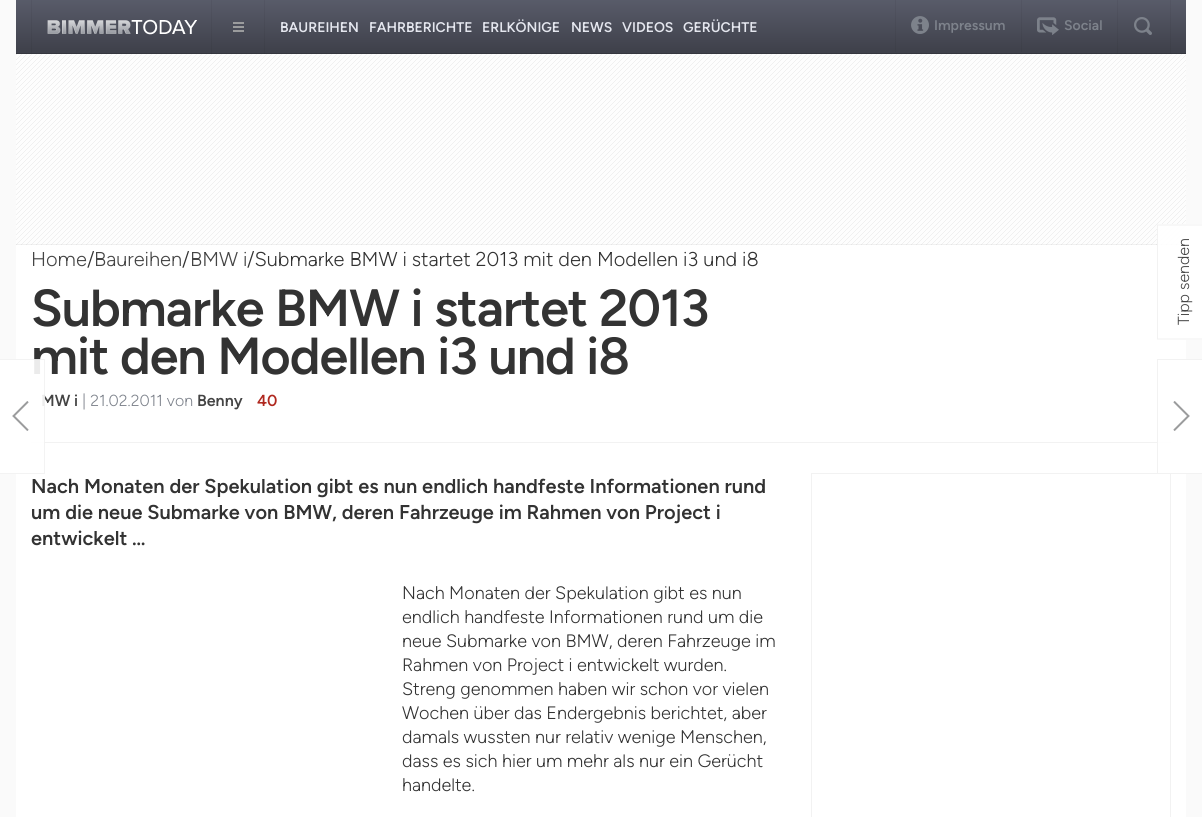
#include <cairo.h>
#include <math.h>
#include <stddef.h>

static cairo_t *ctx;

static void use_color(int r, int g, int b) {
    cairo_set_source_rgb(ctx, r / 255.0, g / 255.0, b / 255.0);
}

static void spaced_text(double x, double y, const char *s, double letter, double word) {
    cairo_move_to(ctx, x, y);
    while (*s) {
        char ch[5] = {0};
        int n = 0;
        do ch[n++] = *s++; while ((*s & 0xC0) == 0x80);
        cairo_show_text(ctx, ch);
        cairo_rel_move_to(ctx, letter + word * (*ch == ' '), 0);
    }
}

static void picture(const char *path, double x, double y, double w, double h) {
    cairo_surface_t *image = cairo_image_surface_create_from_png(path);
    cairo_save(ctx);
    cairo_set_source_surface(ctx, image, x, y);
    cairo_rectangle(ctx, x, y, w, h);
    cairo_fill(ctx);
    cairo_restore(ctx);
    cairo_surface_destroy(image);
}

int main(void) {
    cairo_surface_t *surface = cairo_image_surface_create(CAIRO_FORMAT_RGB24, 1202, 817);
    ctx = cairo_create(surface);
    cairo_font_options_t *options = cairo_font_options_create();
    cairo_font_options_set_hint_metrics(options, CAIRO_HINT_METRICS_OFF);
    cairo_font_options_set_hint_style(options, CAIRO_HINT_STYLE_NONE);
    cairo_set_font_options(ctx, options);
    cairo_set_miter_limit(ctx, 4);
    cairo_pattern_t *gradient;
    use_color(250, 250, 250);
    cairo_paint(ctx);
    gradient = cairo_pattern_create_linear(601, 0, 601, 53);
    cairo_pattern_add_color_stop_rgba(gradient, 0.01, 0.345, 0.357, 0.412, 1);
    cairo_pattern_add_color_stop_rgba(gradient, 0.96, 0.247, 0.255, 0.294, 1);
    cairo_set_source(ctx, gradient);
    cairo_pattern_destroy(gradient);
    cairo_rectangle(ctx, 16, 0, 1170, 53);
    cairo_fill(ctx);
    gradient = cairo_pattern_create_linear(601, 0, 601, 53);
    cairo_pattern_add_color_stop_rgba(gradient, 0.01, 0.329, 0.337, 0.392, 1);
    cairo_pattern_add_color_stop_rgba(gradient, 0.96, 0.235, 0.243, 0.278, 1);
    cairo_set_source(ctx, gradient);
    cairo_pattern_destroy(gradient);
    cairo_rectangle(ctx, 1117, 0, 1, 53);
    cairo_fill(ctx);
    cairo_rectangle(ctx, 1170, 0, 1, 53);
    cairo_fill(ctx);
    cairo_rectangle(ctx, 1021, 0, 1, 52);
    cairo_fill(ctx);
    cairo_rectangle(ctx, 895, 0, 1, 52);
    cairo_fill(ctx);
    cairo_rectangle(ctx, 211, 0, 1, 53);
    cairo_fill(ctx);
    cairo_rectangle(ctx, 264, 0, 1, 53);
    cairo_fill(ctx);
    cairo_rectangle(ctx, 31, 0, 1, 53);
    cairo_fill(ctx);
    use_color(53, 55, 63);
    cairo_rectangle(ctx, 16, 53, 1170, 1);
    cairo_fill(ctx);
    use_color(50, 52, 60);
    cairo_rectangle(ctx, 1117, 53, 1, 1);
    cairo_fill(ctx);
    cairo_rectangle(ctx, 1170, 53, 1, 1);
    cairo_fill(ctx);
    cairo_rectangle(ctx, 211, 53, 1, 1);
    cairo_fill(ctx);
    cairo_rectangle(ctx, 264, 53, 1, 1);
    cairo_fill(ctx);
    picture("img1.png", 47, 19, 150, 16);
    picture("img2.png", 233, 22, 11, 10);
    cairo_select_font_face(ctx, "Figtree SemiBold", CAIRO_FONT_SLANT_NORMAL, CAIRO_FONT_WEIGHT_NORMAL);
    cairo_set_font_size(ctx, 14);
    use_color(228, 230, 238);
    cairo_move_to(ctx, 280, 32);
    cairo_show_text(ctx, "BAUREIHEN");
    cairo_move_to(ctx, 369, 32);
    cairo_show_text(ctx, "FAHRBERICHTE");
    cairo_move_to(ctx, 482, 32);
    cairo_show_text(ctx, "ERLKÖNIGE");
    cairo_move_to(ctx, 571, 32);
    cairo_show_text(ctx, "NEWS");
    cairo_move_to(ctx, 622, 32);
    cairo_show_text(ctx, "VIDEOS");
    cairo_move_to(ctx, 683, 32);
    cairo_show_text(ctx, "GERÜCHTE");
    picture("img3.png", 911, 16, 18, 18);
    use_color(125, 130, 139);
    cairo_move_to(ctx, 934, 30);
    cairo_show_text(ctx, "Impressum");
    picture("img4.png", 1037, 17, 22, 18);
    cairo_move_to(ctx, 1064, 30);
    cairo_show_text(ctx, "Social");
    picture("img5.png", 1134, 17, 18, 18);
    picture("img6.png", 16, 54, 1170, 191);
    cairo_set_source_rgba(ctx, 0, 0, 0, 0.05);
    cairo_rectangle(ctx, 16, 244, 1170, 1);
    cairo_fill(ctx);
    use_color(255, 255, 255);
    cairo_rectangle(ctx, 16, 245, 1170, 572);
    cairo_fill(ctx);
    use_color(242, 242, 242);
    cairo_rectangle(ctx, 31, 442, 1140, 1);
    cairo_fill(ctx);
    cairo_select_font_face(ctx, "Figtree Light", CAIRO_FONT_SLANT_NORMAL, CAIRO_FONT_WEIGHT_NORMAL);
    cairo_set_font_size(ctx, 20);
    use_color(68, 68, 68);
    cairo_move_to(ctx, 31, 266);
    cairo_show_text(ctx, "Home");
    use_color(51, 51, 51);
    cairo_move_to(ctx, 87, 266);
    cairo_show_text(ctx, "/");
    use_color(68, 68, 68);
    cairo_move_to(ctx, 94, 266);
    cairo_show_text(ctx, "Baureihen");
    use_color(51, 51, 51);
    cairo_move_to(ctx, 182, 266);
    cairo_show_text(ctx, "/");
    use_color(68, 68, 68);
    cairo_move_to(ctx, 190, 266);
    cairo_show_text(ctx, "BMW i");
    use_color(51, 51, 51);
    cairo_move_to(ctx, 247, 266);
    cairo_show_text(ctx, "/Submarke BMW i startet 2013 mit den Modellen i3 und i8");
    cairo_select_font_face(ctx, "Figtree SemiBold", CAIRO_FONT_SLANT_NORMAL, CAIRO_FONT_WEIGHT_NORMAL);
    cairo_set_font_size(ctx, 52);
    spaced_text(31, 326, "Submarke BMW i startet 2013", -1, 0);
    spaced_text(31, 374, "mit den Modellen i3 und i8", -1, 0);
    cairo_set_font_size(ctx, 16);
    use_color(68, 68, 68);
    cairo_move_to(ctx, 41, 406);
    cairo_show_text(ctx, "MW i");
    cairo_select_font_face(ctx, "Figtree Light", CAIRO_FONT_SLANT_NORMAL, CAIRO_FONT_WEIGHT_NORMAL);
    use_color(125, 130, 139);
    cairo_move_to(ctx, 82, 406);
    cairo_show_text(ctx, "| 21.02.2011 von");
    cairo_select_font_face(ctx, "Figtree SemiBold", CAIRO_FONT_SLANT_NORMAL, CAIRO_FONT_WEIGHT_NORMAL);
    use_color(68, 68, 68);
    cairo_move_to(ctx, 197, 406);
    cairo_show_text(ctx, "Benny");
    use_color(176, 40, 31);
    cairo_move_to(ctx, 257, 406);
    cairo_show_text(ctx, "40");
    cairo_set_source_rgba(ctx, 1, 1, 1, 0.9);
    cairo_rectangle(ctx, 0, 359, 45, 115);
    cairo_fill(ctx);
    picture("img7.png", 12, 401, 17, 30);
    cairo_rectangle(ctx, -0.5, 359.5, 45, 114);
    cairo_set_source_rgba(ctx, 0, 0, 0, 0.05);
    cairo_set_line_width(ctx, 1);
    cairo_stroke(ctx);
    cairo_set_source_rgba(ctx, 1, 1, 1, 0.9);
    cairo_rectangle(ctx, 1158, 360, 44, 113);
    cairo_fill(ctx);
    picture("img8.png", 1173, 401, 17, 30);
    cairo_rectangle(ctx, 811.5, 473.5, 359, 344);
    use_color(242, 242, 242);
    cairo_stroke(ctx);
    cairo_rectangle(ctx, 1157.5, 359.5, 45, 114);
    cairo_stroke(ctx);
    cairo_set_font_size(ctx, 20);
    use_color(51, 51, 51);
    cairo_move_to(ctx, 31, 493);
    cairo_show_text(ctx, "Nach Monaten der Spekulation gibt es nun endlich handfeste Informationen rund");
    cairo_move_to(ctx, 31, 519);
    cairo_show_text(ctx, "um die neue Submarke von BMW, deren Fahrzeuge im Rahmen von Project i");
    cairo_move_to(ctx, 31, 545);
    cairo_show_text(ctx, "entwickelt …");
    cairo_select_font_face(ctx, "Figtree Light", CAIRO_FONT_SLANT_NORMAL, CAIRO_FONT_WEIGHT_NORMAL);
    cairo_set_font_size(ctx, 18);
    cairo_move_to(ctx, 402, 599);
    cairo_show_text(ctx, "Nach Monaten der Spekulation gibt es nun");
    cairo_move_to(ctx, 402, 623);
    cairo_show_text(ctx, "endlich handfeste Informationen rund um die");
    cairo_move_to(ctx, 402, 647);
    cairo_show_text(ctx, "neue Submarke von BMW, deren Fahrzeuge im");
    cairo_move_to(ctx, 402, 671);
    cairo_show_text(ctx, "Rahmen von Project i entwickelt wurden.");
    cairo_move_to(ctx, 402, 695);
    cairo_show_text(ctx, "Streng genommen haben wir schon vor vielen");
    cairo_move_to(ctx, 402, 719);
    cairo_show_text(ctx, "Wochen über das Endergebnis berichtet, aber");
    cairo_move_to(ctx, 402, 743);
    cairo_show_text(ctx, "damals wussten nur relativ wenige Menschen,");
    cairo_move_to(ctx, 402, 767);
    cairo_show_text(ctx, "dass es sich hier um mehr als nur ein Gerücht");
    cairo_move_to(ctx, 402, 791);
    cairo_show_text(ctx, "handelte.");
    cairo_set_source_rgba(ctx, 1, 1, 1, 0.9);
    cairo_rectangle(ctx, 1157, 224, 45, 116);
    cairo_fill(ctx);
    cairo_new_path(ctx);
    cairo_move_to(ctx, 1157.5, 339);
    cairo_line_to(ctx, 1157.5, 225);
    cairo_line_to(ctx, 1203.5, 225);
    cairo_line_to(ctx, 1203.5, 339);
    cairo_close_path(ctx);
    use_color(242, 242, 242);
    cairo_stroke(ctx);
    cairo_set_font_size(ctx, 16);
    use_color(68, 68, 68);
    cairo_save(ctx);
    cairo_translate(ctx, 1189, 325);
    cairo_rotate(ctx, -90 * M_PI / 180);
    cairo_move_to(ctx, 0, 0);
    cairo_show_text(ctx, "Tipp senden");
    cairo_restore(ctx);
    cairo_surface_write_to_png(surface, "result.png");
    cairo_font_options_destroy(options);
    cairo_destroy(ctx);
    cairo_surface_destroy(surface);
    return 0;
}
